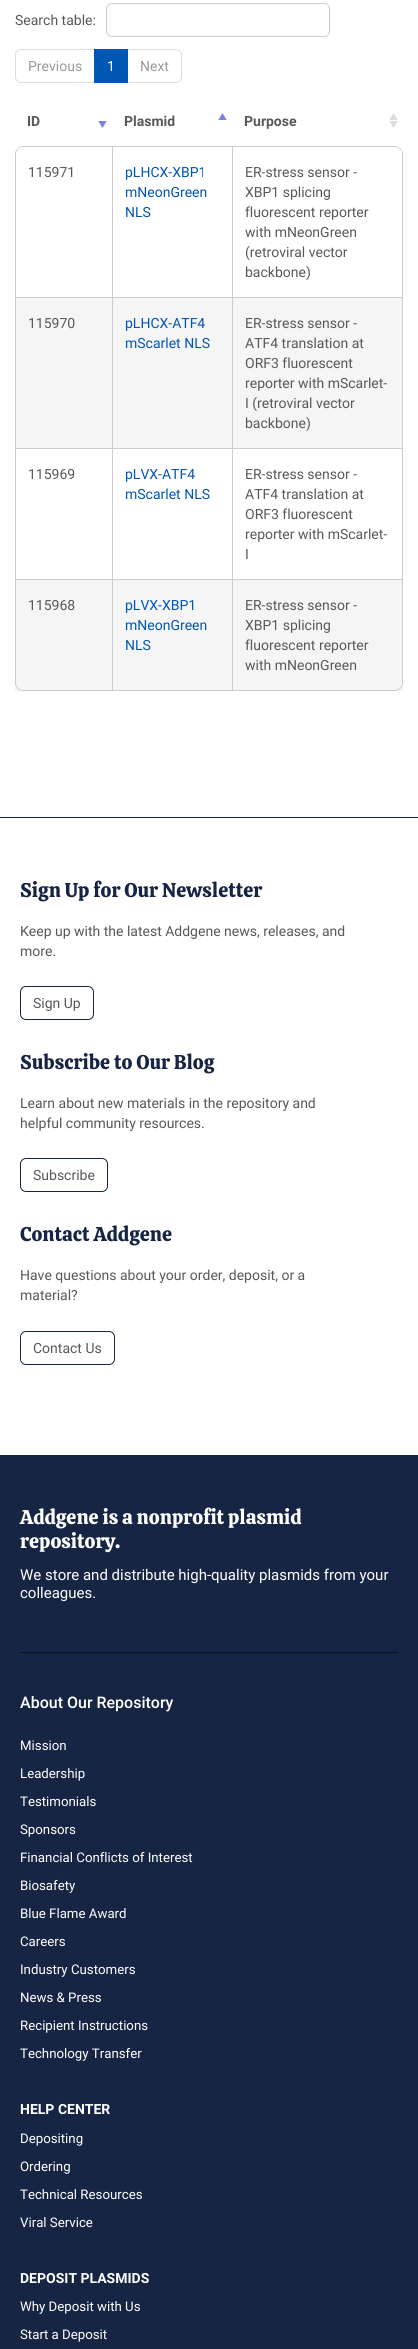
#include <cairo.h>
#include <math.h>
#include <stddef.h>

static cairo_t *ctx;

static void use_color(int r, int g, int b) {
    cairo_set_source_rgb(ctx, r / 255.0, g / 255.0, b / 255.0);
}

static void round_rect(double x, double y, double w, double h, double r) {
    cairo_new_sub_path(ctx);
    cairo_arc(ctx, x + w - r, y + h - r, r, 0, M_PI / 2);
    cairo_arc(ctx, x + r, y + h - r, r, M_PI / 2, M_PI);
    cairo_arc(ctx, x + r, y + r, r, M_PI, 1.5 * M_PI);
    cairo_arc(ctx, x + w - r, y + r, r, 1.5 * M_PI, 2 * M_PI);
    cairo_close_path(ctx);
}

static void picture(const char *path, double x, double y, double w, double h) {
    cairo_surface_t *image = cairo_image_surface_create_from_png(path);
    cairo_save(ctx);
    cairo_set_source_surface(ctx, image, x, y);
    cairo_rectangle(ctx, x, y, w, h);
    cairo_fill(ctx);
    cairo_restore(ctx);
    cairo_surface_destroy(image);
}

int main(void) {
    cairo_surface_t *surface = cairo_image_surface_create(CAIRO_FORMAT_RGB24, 418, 2349);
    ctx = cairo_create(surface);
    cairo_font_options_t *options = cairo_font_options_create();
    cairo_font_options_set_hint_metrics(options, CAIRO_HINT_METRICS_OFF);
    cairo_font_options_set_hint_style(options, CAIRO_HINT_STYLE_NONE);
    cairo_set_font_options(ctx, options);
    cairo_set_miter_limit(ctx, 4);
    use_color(255, 255, 255);
    cairo_paint(ctx);
    cairo_select_font_face(ctx, "Roboto", CAIRO_FONT_SLANT_NORMAL, CAIRO_FONT_WEIGHT_NORMAL);
    cairo_set_font_size(ctx, 14);
    use_color(88, 88, 88);
    cairo_move_to(ctx, 15, 25);
    cairo_show_text(ctx, "Search table:");
    round_rect(106.5, 3.5, 223, 33, 5.5);
    use_color(204, 204, 204);
    cairo_set_line_width(ctx, 1);
    cairo_stroke(ctx);
    cairo_new_path(ctx);
    cairo_move_to(ctx, 21, 49.5);
    cairo_line_to(ctx, 94.5, 49.5);
    cairo_line_to(ctx, 94.5, 82.5);
    cairo_line_to(ctx, 21, 82.5);
    cairo_curve_to(ctx, 18, 82.5, 15.5, 80, 15.5, 77);
    cairo_line_to(ctx, 15.5, 55);
    cairo_curve_to(ctx, 15.5, 52, 18, 49.5, 21, 49.5);
    cairo_close_path(ctx);
    use_color(221, 221, 221);
    cairo_stroke(ctx);
    use_color(153, 153, 153);
    cairo_move_to(ctx, 28, 71);
    cairo_show_text(ctx, "Previous");
    cairo_new_path(ctx);
    cairo_move_to(ctx, 127.5, 49.5);
    cairo_line_to(ctx, 176, 49.5);
    cairo_curve_to(ctx, 179, 49.5, 181.5, 52, 181.5, 55);
    cairo_line_to(ctx, 181.5, 77);
    cairo_curve_to(ctx, 181.5, 80, 179, 82.5, 176, 82.5);
    cairo_line_to(ctx, 127.5, 82.5);
    cairo_close_path(ctx);
    use_color(221, 221, 221);
    cairo_stroke(ctx);
    use_color(0, 86, 179);
    cairo_rectangle(ctx, 94, 49, 34, 34);
    cairo_fill(ctx);
    use_color(255, 255, 255);
    cairo_move_to(ctx, 107, 71);
    cairo_show_text(ctx, "1");
    use_color(153, 153, 153);
    cairo_move_to(ctx, 140, 71);
    cairo_show_text(ctx, "Next");
    picture("img1.png", 98, 121, 9, 7);
    cairo_select_font_face(ctx, "Roboto", CAIRO_FONT_SLANT_NORMAL, CAIRO_FONT_WEIGHT_BOLD);
    use_color(88, 88, 88);
    cairo_move_to(ctx, 27, 126);
    cairo_show_text(ctx, "ID");
    picture("img2.png", 218, 113, 9, 7);
    cairo_move_to(ctx, 124, 126);
    cairo_show_text(ctx, "Plasmid");
    picture("img3.png", 389, 113, 9, 15);
    cairo_move_to(ctx, 244, 126);
    cairo_show_text(ctx, "Purpose");
    use_color(204, 204, 204);
    cairo_set_fill_rule(ctx, CAIRO_FILL_RULE_EVEN_ODD);
    cairo_new_path(ctx);
    cairo_move_to(ctx, 23, 146);
    cairo_line_to(ctx, 112, 146);
    cairo_line_to(ctx, 112, 297);
    cairo_line_to(ctx, 15, 297);
    cairo_line_to(ctx, 15, 154);
    cairo_curve_to(ctx, 15, 150, 19, 146, 23, 146);
    cairo_close_path(ctx);
    cairo_move_to(ctx, 23, 147);
    cairo_line_to(ctx, 112, 147);
    cairo_line_to(ctx, 112, 297);
    cairo_line_to(ctx, 16, 297);
    cairo_line_to(ctx, 16, 154);
    cairo_curve_to(ctx, 16, 150, 19, 147, 23, 147);
    cairo_close_path(ctx);
    cairo_fill(ctx);
    cairo_select_font_face(ctx, "Roboto", CAIRO_FONT_SLANT_NORMAL, CAIRO_FONT_WEIGHT_NORMAL);
    use_color(88, 88, 88);
    cairo_move_to(ctx, 28, 177);
    cairo_show_text(ctx, "115971");
    use_color(204, 204, 204);
    cairo_rectangle(ctx, 112, 146, 120, 1);
    cairo_fill(ctx);
    cairo_rectangle(ctx, 112, 146, 1, 151);
    cairo_fill(ctx);
    use_color(0, 86, 179);
    cairo_move_to(ctx, 125, 177);
    cairo_show_text(ctx, "pLHCX-XBP1");
    cairo_move_to(ctx, 125, 197);
    cairo_show_text(ctx, "mNeonGreen");
    cairo_move_to(ctx, 125, 217);
    cairo_show_text(ctx, "NLS");
    use_color(204, 204, 204);
    cairo_new_path(ctx);
    cairo_move_to(ctx, 232, 146);
    cairo_line_to(ctx, 395, 146);
    cairo_curve_to(ctx, 399, 146, 403, 150, 403, 154);
    cairo_line_to(ctx, 403, 297);
    cairo_line_to(ctx, 232, 297);
    cairo_close_path(ctx);
    cairo_move_to(ctx, 233, 147);
    cairo_line_to(ctx, 395, 147);
    cairo_curve_to(ctx, 399, 147, 402, 150, 402, 154);
    cairo_line_to(ctx, 402, 297);
    cairo_line_to(ctx, 233, 297);
    cairo_close_path(ctx);
    cairo_fill(ctx);
    use_color(88, 88, 88);
    cairo_move_to(ctx, 245, 177);
    cairo_show_text(ctx, "ER-stress sensor -");
    cairo_move_to(ctx, 245, 197);
    cairo_show_text(ctx, "XBP1 splicing");
    cairo_move_to(ctx, 245, 217);
    cairo_show_text(ctx, "fluorescent reporter");
    cairo_move_to(ctx, 245, 237);
    cairo_show_text(ctx, "with mNeonGreen");
    cairo_move_to(ctx, 245, 257);
    cairo_show_text(ctx, "(retroviral vector");
    cairo_move_to(ctx, 245, 277);
    cairo_show_text(ctx, "backbone)");
    use_color(245, 245, 245);
    cairo_rectangle(ctx, 16, 298, 386, 150);
    cairo_fill(ctx);
    use_color(204, 204, 204);
    cairo_rectangle(ctx, 15, 297, 388, 1);
    cairo_fill(ctx);
    cairo_rectangle(ctx, 15, 297, 1, 151);
    cairo_fill(ctx);
    use_color(88, 88, 88);
    cairo_move_to(ctx, 28, 328);
    cairo_show_text(ctx, "115970");
    use_color(204, 204, 204);
    cairo_rectangle(ctx, 112, 297, 1, 151);
    cairo_fill(ctx);
    use_color(0, 86, 179);
    cairo_move_to(ctx, 125, 328);
    cairo_show_text(ctx, "pLHCX-ATF4");
    cairo_move_to(ctx, 125, 348);
    cairo_show_text(ctx, "mScarlet NLS");
    use_color(204, 204, 204);
    cairo_rectangle(ctx, 402, 297, 1, 151);
    cairo_fill(ctx);
    cairo_rectangle(ctx, 232, 297, 1, 151);
    cairo_fill(ctx);
    use_color(88, 88, 88);
    cairo_move_to(ctx, 245, 328);
    cairo_show_text(ctx, "ER-stress sensor -");
    cairo_move_to(ctx, 245, 348);
    cairo_show_text(ctx, "ATF4 translation at");
    cairo_move_to(ctx, 245, 368);
    cairo_show_text(ctx, "ORF3 fluorescent");
    cairo_move_to(ctx, 245, 388);
    cairo_show_text(ctx, "reporter with mScarlet-");
    cairo_move_to(ctx, 245, 408);
    cairo_show_text(ctx, "I (retroviral vector");
    cairo_move_to(ctx, 245, 428);
    cairo_show_text(ctx, "backbone)");
    use_color(204, 204, 204);
    cairo_rectangle(ctx, 15, 448, 388, 1);
    cairo_fill(ctx);
    cairo_rectangle(ctx, 15, 448, 1, 131);
    cairo_fill(ctx);
    use_color(88, 88, 88);
    cairo_move_to(ctx, 28, 479);
    cairo_show_text(ctx, "115969");
    use_color(204, 204, 204);
    cairo_rectangle(ctx, 112, 448, 1, 131);
    cairo_fill(ctx);
    use_color(0, 86, 179);
    cairo_move_to(ctx, 125, 479);
    cairo_show_text(ctx, "pLVX-ATF4");
    cairo_move_to(ctx, 125, 499);
    cairo_show_text(ctx, "mScarlet NLS");
    use_color(204, 204, 204);
    cairo_rectangle(ctx, 402, 448, 1, 131);
    cairo_fill(ctx);
    cairo_rectangle(ctx, 232, 448, 1, 131);
    cairo_fill(ctx);
    use_color(88, 88, 88);
    cairo_move_to(ctx, 245, 479);
    cairo_show_text(ctx, "ER-stress sensor -");
    cairo_move_to(ctx, 245, 499);
    cairo_show_text(ctx, "ATF4 translation at");
    cairo_move_to(ctx, 245, 519);
    cairo_show_text(ctx, "ORF3 fluorescent");
    cairo_move_to(ctx, 245, 539);
    cairo_show_text(ctx, "reporter with mScarlet-");
    cairo_move_to(ctx, 245, 559);
    cairo_show_text(ctx, "I");
    use_color(245, 245, 245);
    cairo_rectangle(ctx, 15, 580, 388, 111);
    cairo_fill(ctx);
    use_color(204, 204, 204);
    cairo_new_path(ctx);
    cairo_move_to(ctx, 15, 579);
    cairo_line_to(ctx, 112, 579);
    cairo_line_to(ctx, 112, 691);
    cairo_line_to(ctx, 23, 691);
    cairo_curve_to(ctx, 19, 691, 15, 687, 15, 683);
    cairo_close_path(ctx);
    cairo_move_to(ctx, 16, 580);
    cairo_line_to(ctx, 112, 580);
    cairo_line_to(ctx, 112, 690);
    cairo_line_to(ctx, 23, 690);
    cairo_curve_to(ctx, 19, 690, 16, 687, 16, 683);
    cairo_close_path(ctx);
    cairo_fill(ctx);
    use_color(88, 88, 88);
    cairo_move_to(ctx, 28, 610);
    cairo_show_text(ctx, "115968");
    use_color(204, 204, 204);
    cairo_rectangle(ctx, 112, 579, 120, 1);
    cairo_fill(ctx);
    cairo_rectangle(ctx, 112, 690, 120, 1);
    cairo_fill(ctx);
    cairo_rectangle(ctx, 112, 579, 1, 112);
    cairo_fill(ctx);
    use_color(0, 86, 179);
    cairo_move_to(ctx, 125, 610);
    cairo_show_text(ctx, "pLVX-XBP1");
    cairo_move_to(ctx, 125, 630);
    cairo_show_text(ctx, "mNeonGreen");
    cairo_move_to(ctx, 125, 650);
    cairo_show_text(ctx, "NLS");
    cairo_new_path(ctx);
    cairo_move_to(ctx, 232.5, 579.5);
    cairo_line_to(ctx, 402.5, 579.5);
    cairo_line_to(ctx, 402.5, 683);
    cairo_curve_to(ctx, 402.5, 687, 399, 690.5, 395, 690.5);
    cairo_line_to(ctx, 232.5, 690.5);
    cairo_close_path(ctx);
    use_color(204, 204, 204);
    cairo_stroke(ctx);
    use_color(88, 88, 88);
    cairo_move_to(ctx, 245, 610);
    cairo_show_text(ctx, "ER-stress sensor -");
    cairo_move_to(ctx, 245, 630);
    cairo_show_text(ctx, "XBP1 splicing");
    cairo_move_to(ctx, 245, 650);
    cairo_show_text(ctx, "fluorescent reporter");
    cairo_move_to(ctx, 245, 670);
    cairo_show_text(ctx, "with mNeonGreen");
    use_color(23, 37, 68);
    cairo_rectangle(ctx, 0, 817, 418, 1);
    cairo_fill(ctx);
    cairo_select_font_face(ctx, "Calistoga", CAIRO_FONT_SLANT_NORMAL, CAIRO_FONT_WEIGHT_NORMAL);
    cairo_set_font_size(ctx, 20);
    cairo_move_to(ctx, 20, 897);
    cairo_show_text(ctx, "Sign Up for Our Newsletter");
    cairo_select_font_face(ctx, "Roboto", CAIRO_FONT_SLANT_NORMAL, CAIRO_FONT_WEIGHT_NORMAL);
    cairo_set_font_size(ctx, 14);
    use_color(88, 88, 88);
    cairo_move_to(ctx, 20, 936);
    cairo_show_text(ctx, "Keep up with the latest Addgene news, releases, and");
    cairo_move_to(ctx, 20, 956);
    cairo_show_text(ctx, "more.");
    round_rect(20.5, 986.5, 73, 33, 5.5);
    use_color(23, 37, 68);
    cairo_stroke(ctx);
    use_color(88, 88, 88);
    cairo_move_to(ctx, 33, 1008);
    cairo_show_text(ctx, "Sign Up");
    cairo_select_font_face(ctx, "Calistoga", CAIRO_FONT_SLANT_NORMAL, CAIRO_FONT_WEIGHT_NORMAL);
    cairo_set_font_size(ctx, 20);
    use_color(23, 37, 68);
    cairo_move_to(ctx, 20, 1069);
    cairo_show_text(ctx, "Subscribe to Our Blog");
    cairo_select_font_face(ctx, "Roboto", CAIRO_FONT_SLANT_NORMAL, CAIRO_FONT_WEIGHT_NORMAL);
    cairo_set_font_size(ctx, 14);
    use_color(88, 88, 88);
    cairo_move_to(ctx, 20, 1108);
    cairo_show_text(ctx, "Learn about new materials in the repository and");
    cairo_move_to(ctx, 20, 1128);
    cairo_show_text(ctx, "helpful community resources.");
    round_rect(20.5, 1158.5, 87, 33, 5.5);
    use_color(23, 37, 68);
    cairo_stroke(ctx);
    use_color(88, 88, 88);
    cairo_move_to(ctx, 33, 1180);
    cairo_show_text(ctx, "Subscribe");
    cairo_select_font_face(ctx, "Calistoga", CAIRO_FONT_SLANT_NORMAL, CAIRO_FONT_WEIGHT_NORMAL);
    cairo_set_font_size(ctx, 20);
    use_color(23, 37, 68);
    cairo_move_to(ctx, 20, 1241);
    cairo_show_text(ctx, "Contact Addgene");
    cairo_select_font_face(ctx, "Roboto", CAIRO_FONT_SLANT_NORMAL, CAIRO_FONT_WEIGHT_NORMAL);
    cairo_set_font_size(ctx, 14);
    use_color(88, 88, 88);
    cairo_move_to(ctx, 20, 1280);
    cairo_show_text(ctx, "Have questions about your order, deposit, or a");
    cairo_move_to(ctx, 20, 1300);
    cairo_show_text(ctx, "material?");
    round_rect(20.5, 1331.5, 94, 33, 5.5);
    use_color(23, 37, 68);
    cairo_stroke(ctx);
    use_color(88, 88, 88);
    cairo_move_to(ctx, 33, 1353);
    cairo_show_text(ctx, "Contact Us");
    use_color(23, 37, 68);
    cairo_rectangle(ctx, 0, 1455, 418, 894);
    cairo_fill(ctx);
    cairo_select_font_face(ctx, "Calistoga", CAIRO_FONT_SLANT_NORMAL, CAIRO_FONT_WEIGHT_NORMAL);
    cairo_set_font_size(ctx, 20);
    use_color(255, 255, 255);
    cairo_move_to(ctx, 20, 1524);
    cairo_show_text(ctx, "Addgene is a nonprofit plasmid");
    cairo_move_to(ctx, 20, 1548);
    cairo_show_text(ctx, "repository.");
    use_color(10, 16, 30);
    cairo_rectangle(ctx, 20, 1652, 378, 1);
    cairo_fill(ctx);
    cairo_select_font_face(ctx, "Roboto", CAIRO_FONT_SLANT_NORMAL, CAIRO_FONT_WEIGHT_NORMAL);
    cairo_set_font_size(ctx, 15);
    use_color(255, 255, 255);
    cairo_move_to(ctx, 20, 1580);
    cairo_show_text(ctx, "We store and distribute high-quality plasmids from your");
    cairo_move_to(ctx, 20, 1598);
    cairo_show_text(ctx, "colleagues.");
    cairo_select_font_face(ctx, "Roboto Medium", CAIRO_FONT_SLANT_NORMAL, CAIRO_FONT_WEIGHT_NORMAL);
    cairo_set_font_size(ctx, 16);
    cairo_move_to(ctx, 20, 1708);
    cairo_show_text(ctx, "About Our Repository");
    cairo_select_font_face(ctx, "Roboto", CAIRO_FONT_SLANT_NORMAL, CAIRO_FONT_WEIGHT_NORMAL);
    cairo_set_font_size(ctx, 13.25);
    cairo_move_to(ctx, 20, 1750);
    cairo_show_text(ctx, "Mission");
    cairo_move_to(ctx, 20, 1778);
    cairo_show_text(ctx, "Leadership");
    cairo_move_to(ctx, 20, 1806);
    cairo_show_text(ctx, "Testimonials");
    cairo_move_to(ctx, 20, 1834);
    cairo_show_text(ctx, "Sponsors");
    cairo_move_to(ctx, 20, 1862);
    cairo_show_text(ctx, "Financial Conflicts of Interest");
    cairo_move_to(ctx, 20, 1890);
    cairo_show_text(ctx, "Biosafety");
    cairo_move_to(ctx, 20, 1918);
    cairo_show_text(ctx, "Blue Flame Award");
    cairo_move_to(ctx, 20, 1946);
    cairo_show_text(ctx, "Careers");
    cairo_move_to(ctx, 20, 1974);
    cairo_show_text(ctx, "Industry Customers");
    cairo_move_to(ctx, 20, 2002);
    cairo_show_text(ctx, "News & Press");
    cairo_move_to(ctx, 20, 2030);
    cairo_show_text(ctx, "Recipient Instructions");
    cairo_move_to(ctx, 20, 2058);
    cairo_show_text(ctx, "Technology Transfer");
    cairo_select_font_face(ctx, "Roboto", CAIRO_FONT_SLANT_NORMAL, CAIRO_FONT_WEIGHT_BOLD);
    cairo_set_font_size(ctx, 14);
    cairo_move_to(ctx, 20, 2114);
    cairo_show_text(ctx, "HELP CENTER");
    cairo_select_font_face(ctx, "Roboto", CAIRO_FONT_SLANT_NORMAL, CAIRO_FONT_WEIGHT_NORMAL);
    cairo_set_font_size(ctx, 13.25);
    cairo_move_to(ctx, 20, 2143);
    cairo_show_text(ctx, "Depositing");
    cairo_move_to(ctx, 20, 2171);
    cairo_show_text(ctx, "Ordering");
    cairo_move_to(ctx, 20, 2199);
    cairo_show_text(ctx, "Technical Resources");
    cairo_move_to(ctx, 20, 2227);
    cairo_show_text(ctx, "Viral Service");
    cairo_select_font_face(ctx, "Roboto", CAIRO_FONT_SLANT_NORMAL, CAIRO_FONT_WEIGHT_BOLD);
    cairo_set_font_size(ctx, 14);
    cairo_move_to(ctx, 20, 2283);
    cairo_show_text(ctx, "DEPOSIT PLASMIDS");
    cairo_select_font_face(ctx, "Roboto", CAIRO_FONT_SLANT_NORMAL, CAIRO_FONT_WEIGHT_NORMAL);
    cairo_set_font_size(ctx, 13.25);
    cairo_move_to(ctx, 20, 2311);
    cairo_show_text(ctx, "Why Deposit with Us");
    cairo_move_to(ctx, 20, 2339);
    cairo_show_text(ctx, "Start a Deposit");
    cairo_surface_write_to_png(surface, "result.png");
    cairo_font_options_destroy(options);
    cairo_destroy(ctx);
    cairo_surface_destroy(surface);
    return 0;
}
